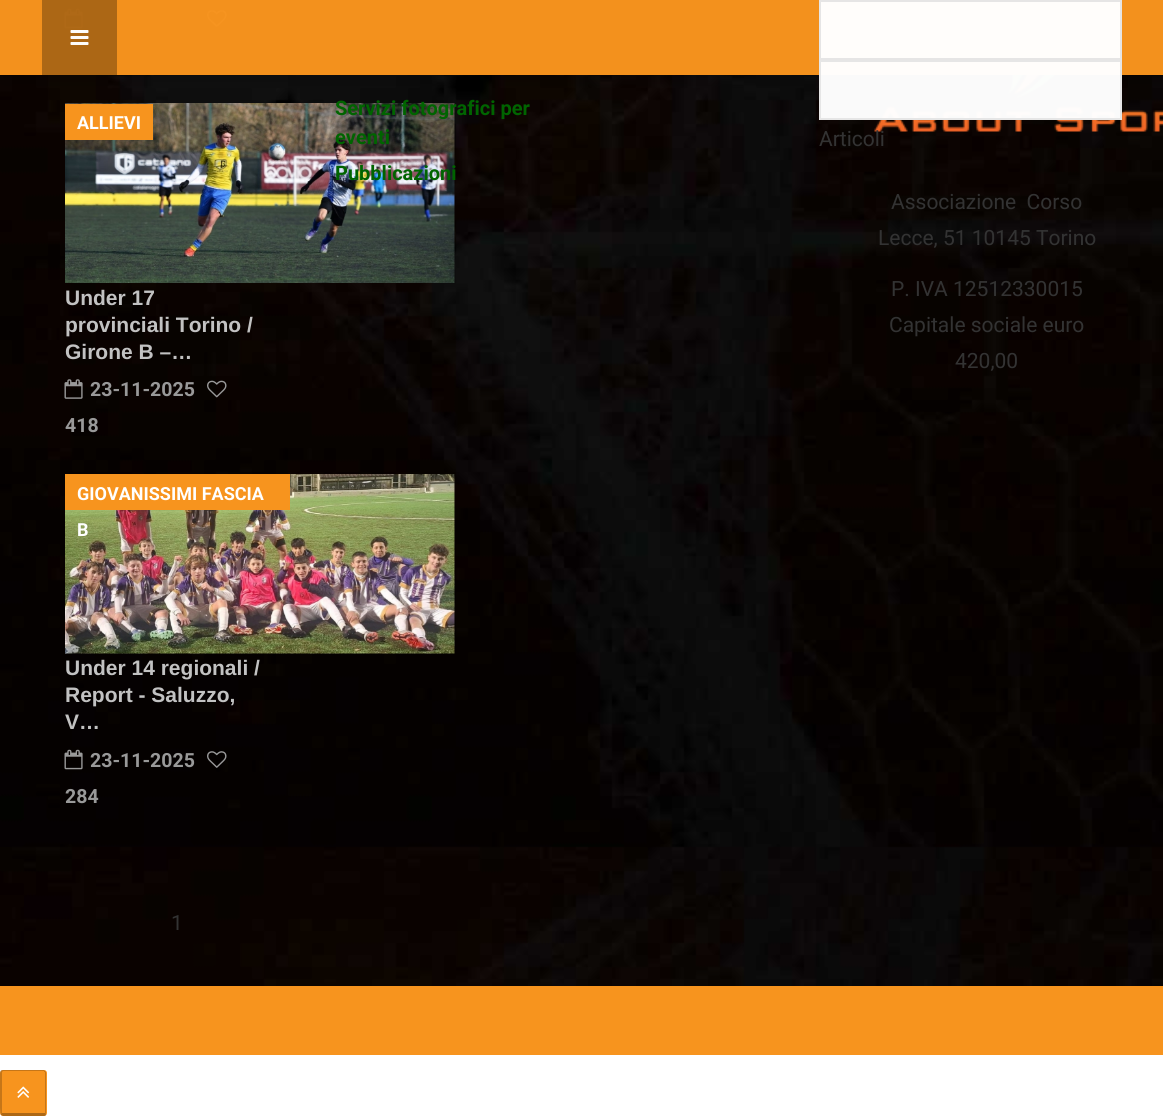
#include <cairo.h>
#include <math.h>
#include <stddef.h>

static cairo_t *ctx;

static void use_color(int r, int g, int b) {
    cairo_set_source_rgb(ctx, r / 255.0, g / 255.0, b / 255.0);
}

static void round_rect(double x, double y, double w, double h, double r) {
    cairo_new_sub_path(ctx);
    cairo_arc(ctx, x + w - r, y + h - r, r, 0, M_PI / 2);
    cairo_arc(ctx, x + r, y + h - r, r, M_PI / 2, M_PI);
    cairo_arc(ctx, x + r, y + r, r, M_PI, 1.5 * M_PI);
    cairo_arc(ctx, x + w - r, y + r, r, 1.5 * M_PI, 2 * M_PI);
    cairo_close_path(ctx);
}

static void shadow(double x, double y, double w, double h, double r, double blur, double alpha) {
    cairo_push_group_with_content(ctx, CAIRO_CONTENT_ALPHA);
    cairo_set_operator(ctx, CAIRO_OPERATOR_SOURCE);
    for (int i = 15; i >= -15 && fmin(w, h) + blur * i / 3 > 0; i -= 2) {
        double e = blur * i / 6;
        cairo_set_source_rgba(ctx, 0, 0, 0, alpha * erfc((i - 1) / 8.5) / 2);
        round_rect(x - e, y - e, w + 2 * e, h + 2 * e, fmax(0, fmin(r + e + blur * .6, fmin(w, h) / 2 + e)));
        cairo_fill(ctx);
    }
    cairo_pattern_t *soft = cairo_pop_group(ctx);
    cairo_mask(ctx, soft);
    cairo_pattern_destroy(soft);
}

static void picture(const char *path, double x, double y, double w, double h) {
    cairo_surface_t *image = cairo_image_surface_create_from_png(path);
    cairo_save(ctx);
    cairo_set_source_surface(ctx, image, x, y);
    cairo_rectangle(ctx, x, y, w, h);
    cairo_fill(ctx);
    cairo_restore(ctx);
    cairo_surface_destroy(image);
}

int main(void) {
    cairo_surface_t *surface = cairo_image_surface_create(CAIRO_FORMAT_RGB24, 1163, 1116);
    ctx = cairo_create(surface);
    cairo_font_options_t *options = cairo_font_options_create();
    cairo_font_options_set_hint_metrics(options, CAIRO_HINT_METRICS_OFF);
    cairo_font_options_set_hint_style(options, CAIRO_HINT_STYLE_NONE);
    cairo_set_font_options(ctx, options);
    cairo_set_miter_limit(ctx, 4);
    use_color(255, 255, 255);
    cairo_paint(ctx);
    picture("img1.png", 0, 0, 1163, 986);
    picture("img2.png", 64, 8, 19, 21);
    picture("img3.png", 207, 10, 20, 17);
    picture("img4.png", 65, 103, 390, 180);
    use_color(247, 148, 30);
    cairo_rectangle(ctx, 65, 104, 88, 36);
    cairo_fill(ctx);
    cairo_select_font_face(ctx, "Roboto", CAIRO_FONT_SLANT_NORMAL, CAIRO_FONT_WEIGHT_BOLD);
    cairo_set_font_size(ctx, 18);
    use_color(255, 255, 255);
    cairo_move_to(ctx, 77, 129);
    cairo_show_text(ctx, "ALLIEVI");
    picture("img5.png", 64, 379, 19, 20);
    cairo_set_font_size(ctx, 19.5);
    use_color(153, 153, 153);
    cairo_move_to(ctx, 90, 396);
    cairo_show_text(ctx, "23-11-2025");
    picture("img6.png", 207, 380, 20, 18);
    cairo_move_to(ctx, 65, 432);
    cairo_show_text(ctx, "418");
    cairo_select_font_face(ctx, "Liberation Sans", CAIRO_FONT_SLANT_NORMAL, CAIRO_FONT_WEIGHT_BOLD);
    cairo_set_font_size(ctx, 21);
    use_color(194, 194, 194);
    cairo_move_to(ctx, 65, 305);
    cairo_show_text(ctx, "Under 17");
    cairo_move_to(ctx, 65, 332);
    cairo_show_text(ctx, "provinciali Torino /");
    cairo_move_to(ctx, 65, 359);
    cairo_show_text(ctx, "Girone B –…");
    picture("img7.png", 65, 474, 390, 180);
    use_color(247, 148, 30);
    cairo_rectangle(ctx, 65, 474, 225, 36);
    cairo_fill(ctx);
    cairo_select_font_face(ctx, "Roboto", CAIRO_FONT_SLANT_NORMAL, CAIRO_FONT_WEIGHT_BOLD);
    cairo_set_font_size(ctx, 18);
    use_color(255, 255, 255);
    cairo_move_to(ctx, 77, 500);
    cairo_show_text(ctx, "GIOVANISSIMI FASCIA");
    cairo_move_to(ctx, 77, 536);
    cairo_show_text(ctx, "B");
    picture("img8.png", 64, 749, 19, 21);
    cairo_set_font_size(ctx, 19.5);
    use_color(153, 153, 153);
    cairo_move_to(ctx, 90, 767);
    cairo_show_text(ctx, "23-11-2025");
    picture("img9.png", 207, 751, 20, 17);
    cairo_move_to(ctx, 65, 803);
    cairo_show_text(ctx, "284");
    cairo_select_font_face(ctx, "Liberation Sans", CAIRO_FONT_SLANT_NORMAL, CAIRO_FONT_WEIGHT_BOLD);
    cairo_set_font_size(ctx, 21);
    use_color(194, 194, 194);
    cairo_move_to(ctx, 65, 675);
    cairo_show_text(ctx, "Under 14 regionali /");
    cairo_move_to(ctx, 65, 702);
    cairo_show_text(ctx, "Report - Saluzzo,");
    cairo_move_to(ctx, 65, 729);
    cairo_show_text(ctx, "V…");
    cairo_select_font_face(ctx, "Roboto", CAIRO_FONT_SLANT_NORMAL, CAIRO_FONT_WEIGHT_NORMAL);
    use_color(51, 51, 51);
    cairo_move_to(ctx, 171, 930);
    cairo_show_text(ctx, "1");
    cairo_select_font_face(ctx, "Roboto", CAIRO_FONT_SLANT_NORMAL, CAIRO_FONT_WEIGHT_BOLD);
    cairo_set_font_size(ctx, 20);
    use_color(0, 100, 0);
    cairo_move_to(ctx, 335, 115);
    cairo_show_text(ctx, "Servizi fotografici per");
    cairo_move_to(ctx, 335, 144);
    cairo_show_text(ctx, "eventi");
    cairo_move_to(ctx, 335, 180);
    cairo_show_text(ctx, "Pubblicazioni");
    picture("img10.png", 874, 2, 289, 130);
    cairo_select_font_face(ctx, "Roboto", CAIRO_FONT_SLANT_NORMAL, CAIRO_FONT_WEIGHT_NORMAL);
    cairo_set_font_size(ctx, 21);
    use_color(51, 51, 51);
    cairo_move_to(ctx, 891, 209);
    cairo_show_text(ctx, "Associazione  Corso");
    cairo_move_to(ctx, 878, 245);
    cairo_show_text(ctx, "Lecce, 51 10145 Torino");
    cairo_move_to(ctx, 891, 296);
    cairo_show_text(ctx, "P. IVA 12512330015");
    cairo_move_to(ctx, 889, 332);
    cairo_show_text(ctx, "Capitale sociale euro");
    cairo_move_to(ctx, 955, 368);
    cairo_show_text(ctx, "420,00");
    use_color(247, 148, 30);
    cairo_rectangle(ctx, 0, 986, 1163, 69);
    cairo_fill(ctx);
    cairo_save(ctx);
    cairo_rectangle(ctx, 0, 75, 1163, 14);
    cairo_clip(ctx);
    use_color(0, 0, 0);
    shadow(2, 9, 1161, 72, 0, 6, 0.2);
    cairo_restore(ctx);
    cairo_set_source_rgba(ctx, 0.969, 0.58, 0.118, 0.98);
    cairo_rectangle(ctx, 0, 0, 1163, 75);
    cairo_fill(ctx);
    cairo_set_source_rgba(ctx, 0, 0, 0, 0.29);
    cairo_rectangle(ctx, 42, 0, 75, 75);
    cairo_fill(ctx);
    picture("img11.png", 70, 30, 19, 15);
    cairo_set_source_rgba(ctx, 1, 1, 1, 0.98);
    cairo_rectangle(ctx, 820, 1, 301, 58);
    cairo_fill_preserve(ctx);
    use_color(230, 229, 229);
    cairo_stroke(ctx);
    cairo_set_source_rgba(ctx, 1, 1, 1, 0.98);
    cairo_rectangle(ctx, 819, 60, 303, 60);
    cairo_fill(ctx);
    cairo_rectangle(ctx, 820, 61, 301, 58);
    cairo_set_source_rgba(ctx, 0.898, 0.898, 0.898, 0.98);
    cairo_stroke(ctx);
    use_color(51, 51, 51);
    cairo_move_to(ctx, 819, 146);
    cairo_show_text(ctx, "Articoli");
    use_color(247, 148, 30);
    round_rect(0, 1070, 47, 46, 3);
    cairo_fill(ctx);
    cairo_set_source_rgba(ctx, 0, 0, 0, 0.2);
    cairo_new_path(ctx);
    cairo_move_to(ctx, 3, 1070);
    cairo_line_to(ctx, 1, 1070);
    cairo_line_to(ctx, 2, 1072);
    cairo_line_to(ctx, 3, 1071);
    cairo_line_to(ctx, 44, 1071);
    cairo_line_to(ctx, 44, 1072);
    cairo_line_to(ctx, 45, 1071);
    cairo_line_to(ctx, 44, 1070);
    cairo_close_path(ctx);
    cairo_fill(ctx);
    cairo_new_path(ctx);
    cairo_move_to(ctx, 46, 1115);
    cairo_line_to(ctx, 46, 1072);
    cairo_line_to(ctx, 45, 1071);
    cairo_line_to(ctx, 44, 1072);
    cairo_line_to(ctx, 45, 1072);
    cairo_line_to(ctx, 45, 1113);
    cairo_close_path(ctx);
    cairo_fill(ctx);
    cairo_set_source_rgba(ctx, 0, 0, 0, 0.3);
    cairo_new_path(ctx);
    cairo_move_to(ctx, 3, 1116);
    cairo_line_to(ctx, 45, 1116);
    cairo_line_to(ctx, 46, 1115);
    cairo_line_to(ctx, 45, 1113);
    cairo_line_to(ctx, 2, 1113);
    cairo_line_to(ctx, 2, 1112);
    cairo_line_to(ctx, 1, 1115);
    cairo_close_path(ctx);
    cairo_fill(ctx);
    cairo_set_source_rgba(ctx, 0, 0, 0, 0.2);
    cairo_new_path(ctx);
    cairo_move_to(ctx, 0, 1072);
    cairo_curve_to(ctx, 0, 1077, -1, 1113, 1, 1115);
    cairo_line_to(ctx, 2, 1112);
    cairo_line_to(ctx, 2, 1072);
    cairo_line_to(ctx, 1, 1070);
    cairo_close_path(ctx);
    cairo_fill(ctx);
    picture("img12.png", 17, 1086, 13, 12);
    cairo_surface_write_to_png(surface, "result.png");
    cairo_font_options_destroy(options);
    cairo_destroy(ctx);
    cairo_surface_destroy(surface);
    return 0;
}
